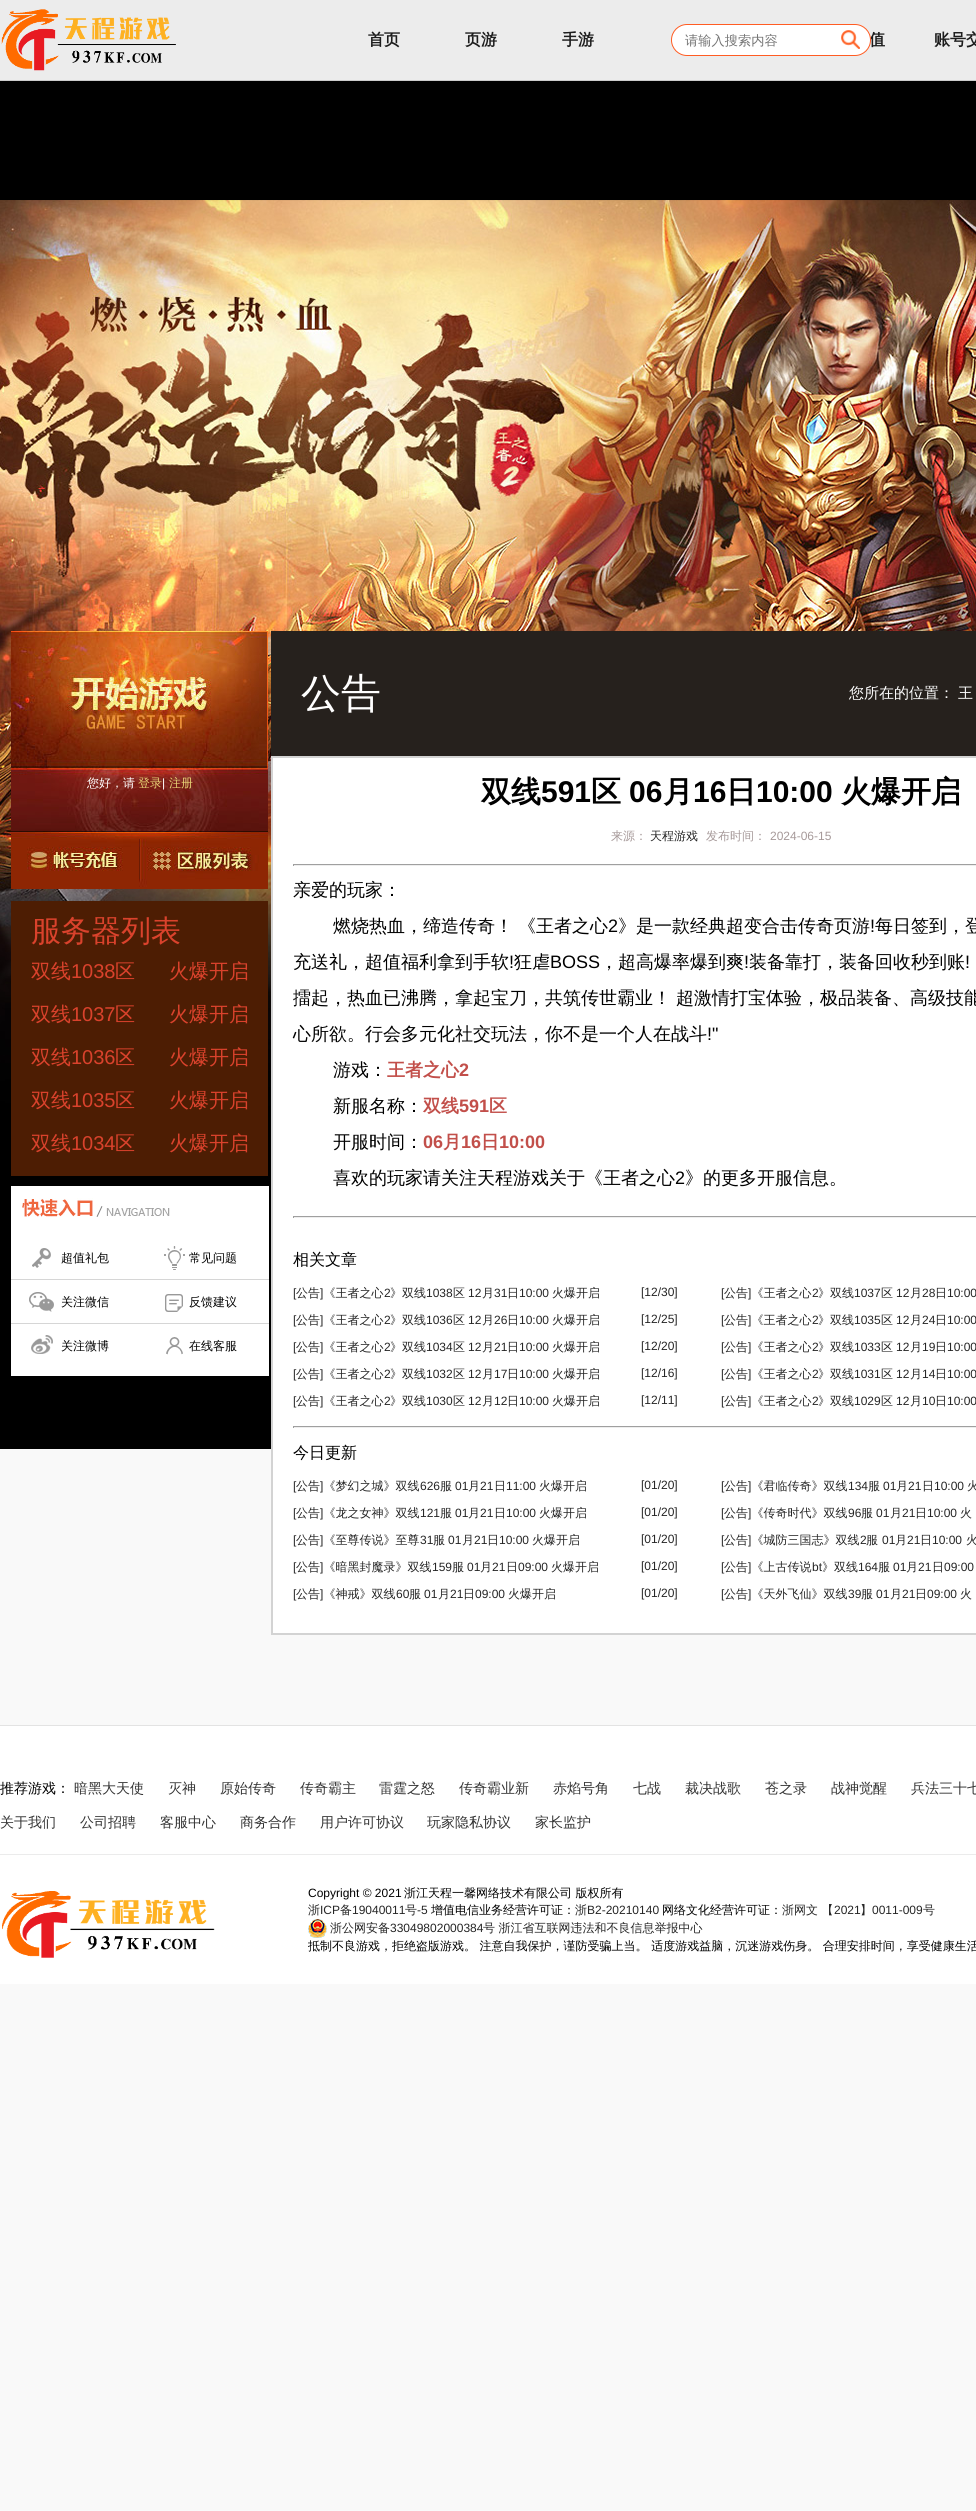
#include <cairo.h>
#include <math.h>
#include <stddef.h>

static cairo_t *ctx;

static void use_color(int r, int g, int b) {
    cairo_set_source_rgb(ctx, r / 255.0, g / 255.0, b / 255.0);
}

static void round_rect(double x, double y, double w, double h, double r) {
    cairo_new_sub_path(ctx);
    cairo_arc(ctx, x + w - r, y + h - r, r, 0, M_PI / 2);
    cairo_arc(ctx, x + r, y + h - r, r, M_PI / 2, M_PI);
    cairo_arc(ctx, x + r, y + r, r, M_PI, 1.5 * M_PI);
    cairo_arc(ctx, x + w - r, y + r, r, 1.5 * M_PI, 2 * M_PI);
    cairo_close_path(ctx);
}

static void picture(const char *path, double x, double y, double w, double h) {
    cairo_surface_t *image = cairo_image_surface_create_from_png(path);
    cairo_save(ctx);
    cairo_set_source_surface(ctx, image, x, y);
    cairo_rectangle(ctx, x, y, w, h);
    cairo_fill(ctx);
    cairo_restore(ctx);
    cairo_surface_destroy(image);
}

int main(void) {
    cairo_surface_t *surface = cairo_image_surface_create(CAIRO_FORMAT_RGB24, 976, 2511);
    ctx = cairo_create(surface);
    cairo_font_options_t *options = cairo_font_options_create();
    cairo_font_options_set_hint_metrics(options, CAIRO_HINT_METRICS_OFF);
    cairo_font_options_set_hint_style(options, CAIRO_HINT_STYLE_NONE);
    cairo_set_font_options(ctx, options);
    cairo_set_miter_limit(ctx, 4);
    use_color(249, 249, 249);
    cairo_paint(ctx);
    picture("img1.png", 0, 81, 976, 1368);
    use_color(236, 236, 236);
    cairo_rectangle(ctx, 0, 0, 976, 80);
    cairo_fill(ctx);
    use_color(204, 204, 204);
    cairo_rectangle(ctx, 0, 80, 976, 1);
    cairo_fill(ctx);
    picture("img2.png", 1, 9, 175, 62);
    cairo_select_font_face(ctx, "WenQuanYi Zen Hei", CAIRO_FONT_SLANT_NORMAL, CAIRO_FONT_WEIGHT_BOLD);
    cairo_set_font_size(ctx, 16);
    use_color(29, 29, 29);
    cairo_move_to(ctx, 368, 45);
    cairo_show_text(ctx, "首页");
    cairo_move_to(ctx, 465, 45);
    cairo_show_text(ctx, "页游");
    cairo_move_to(ctx, 562, 45);
    cairo_show_text(ctx, "手游");
    cairo_move_to(ctx, 869, 45);
    cairo_show_text(ctx, "值");
    cairo_move_to(ctx, 934, 45);
    cairo_show_text(ctx, "账号交");
    use_color(255, 255, 255);
    round_rect(671.5, 24.5, 199, 31, 15.5);
    cairo_fill_preserve(ctx);
    use_color(255, 92, 35);
    cairo_set_line_width(ctx, 1);
    cairo_stroke(ctx);
    cairo_select_font_face(ctx, "WenQuanYi Zen Hei Medium", CAIRO_FONT_SLANT_NORMAL, CAIRO_FONT_WEIGHT_NORMAL);
    cairo_set_font_size(ctx, 13.25);
    use_color(117, 117, 117);
    cairo_move_to(ctx, 685, 45);
    cairo_show_text(ctx, "请输入搜索内容");
    picture("img3.png", 841, 30, 19, 19);
    picture("img4.png", 11, 631, 257, 258);
    cairo_set_font_size(ctx, 12);
    use_color(255, 255, 255);
    cairo_move_to(ctx, 87, 787);
    cairo_show_text(ctx, "您好，请");
    use_color(230, 208, 116);
    cairo_move_to(ctx, 138, 787);
    cairo_show_text(ctx, "登录");
    cairo_select_font_face(ctx, "Liberation Sans", CAIRO_FONT_SLANT_NORMAL, CAIRO_FONT_WEIGHT_NORMAL);
    use_color(255, 255, 255);
    cairo_move_to(ctx, 162, 787);
    cairo_show_text(ctx, "|");
    cairo_select_font_face(ctx, "WenQuanYi Zen Hei Medium", CAIRO_FONT_SLANT_NORMAL, CAIRO_FONT_WEIGHT_NORMAL);
    use_color(230, 208, 116);
    cairo_move_to(ctx, 169, 787);
    cairo_show_text(ctx, "注册");
    use_color(77, 29, 3);
    cairo_rectangle(ctx, 11, 901, 257, 275);
    cairo_fill(ctx);
    cairo_set_font_size(ctx, 30);
    use_color(218, 66, 44);
    cairo_move_to(ctx, 31, 941);
    cairo_show_text(ctx, "服务器列表");
    cairo_set_font_size(ctx, 20);
    cairo_move_to(ctx, 31, 978);
    cairo_show_text(ctx, "双线");
    cairo_select_font_face(ctx, "Liberation Sans", CAIRO_FONT_SLANT_NORMAL, CAIRO_FONT_WEIGHT_NORMAL);
    cairo_move_to(ctx, 71, 978);
    cairo_show_text(ctx, "1038");
    cairo_select_font_face(ctx, "WenQuanYi Zen Hei Medium", CAIRO_FONT_SLANT_NORMAL, CAIRO_FONT_WEIGHT_NORMAL);
    cairo_move_to(ctx, 115, 978);
    cairo_show_text(ctx, "区");
    cairo_move_to(ctx, 169, 978);
    cairo_show_text(ctx, "火爆开启");
    cairo_move_to(ctx, 31, 1021);
    cairo_show_text(ctx, "双线");
    cairo_select_font_face(ctx, "Liberation Sans", CAIRO_FONT_SLANT_NORMAL, CAIRO_FONT_WEIGHT_NORMAL);
    cairo_move_to(ctx, 71, 1021);
    cairo_show_text(ctx, "1037");
    cairo_select_font_face(ctx, "WenQuanYi Zen Hei Medium", CAIRO_FONT_SLANT_NORMAL, CAIRO_FONT_WEIGHT_NORMAL);
    cairo_move_to(ctx, 115, 1021);
    cairo_show_text(ctx, "区");
    cairo_move_to(ctx, 169, 1021);
    cairo_show_text(ctx, "火爆开启");
    cairo_move_to(ctx, 31, 1064);
    cairo_show_text(ctx, "双线");
    cairo_select_font_face(ctx, "Liberation Sans", CAIRO_FONT_SLANT_NORMAL, CAIRO_FONT_WEIGHT_NORMAL);
    cairo_move_to(ctx, 71, 1064);
    cairo_show_text(ctx, "1036");
    cairo_select_font_face(ctx, "WenQuanYi Zen Hei Medium", CAIRO_FONT_SLANT_NORMAL, CAIRO_FONT_WEIGHT_NORMAL);
    cairo_move_to(ctx, 115, 1064);
    cairo_show_text(ctx, "区");
    cairo_move_to(ctx, 169, 1064);
    cairo_show_text(ctx, "火爆开启");
    cairo_move_to(ctx, 31, 1107);
    cairo_show_text(ctx, "双线");
    cairo_select_font_face(ctx, "Liberation Sans", CAIRO_FONT_SLANT_NORMAL, CAIRO_FONT_WEIGHT_NORMAL);
    cairo_move_to(ctx, 71, 1107);
    cairo_show_text(ctx, "1035");
    cairo_select_font_face(ctx, "WenQuanYi Zen Hei Medium", CAIRO_FONT_SLANT_NORMAL, CAIRO_FONT_WEIGHT_NORMAL);
    cairo_move_to(ctx, 115, 1107);
    cairo_show_text(ctx, "区");
    cairo_move_to(ctx, 169, 1107);
    cairo_show_text(ctx, "火爆开启");
    cairo_move_to(ctx, 31, 1150);
    cairo_show_text(ctx, "双线");
    cairo_select_font_face(ctx, "Liberation Sans", CAIRO_FONT_SLANT_NORMAL, CAIRO_FONT_WEIGHT_NORMAL);
    cairo_move_to(ctx, 71, 1150);
    cairo_show_text(ctx, "1034");
    cairo_select_font_face(ctx, "WenQuanYi Zen Hei Medium", CAIRO_FONT_SLANT_NORMAL, CAIRO_FONT_WEIGHT_NORMAL);
    cairo_move_to(ctx, 115, 1150);
    cairo_show_text(ctx, "区");
    cairo_move_to(ctx, 169, 1150);
    cairo_show_text(ctx, "火爆开启");
    use_color(255, 255, 255);
    cairo_rectangle(ctx, 11, 1186, 258, 190);
    cairo_fill(ctx);
    picture("img5.png", 22, 1198, 148, 19);
    picture("img6.png", 11, 1246, 258, 109);
    cairo_set_font_size(ctx, 12);
    use_color(0, 0, 0);
    cairo_move_to(ctx, 61, 1262);
    cairo_show_text(ctx, "超值礼包");
    cairo_move_to(ctx, 189, 1262);
    cairo_show_text(ctx, "常见问题");
    cairo_move_to(ctx, 61, 1306);
    cairo_show_text(ctx, "关注微信");
    cairo_move_to(ctx, 189, 1306);
    cairo_show_text(ctx, "反馈建议");
    cairo_move_to(ctx, 61, 1350);
    cairo_show_text(ctx, "关注微博");
    cairo_move_to(ctx, 189, 1350);
    cairo_show_text(ctx, "在线客服");
    use_color(38, 33, 29);
    cairo_rectangle(ctx, 271, 631, 705, 125);
    cairo_fill(ctx);
    cairo_set_font_size(ctx, 40);
    use_color(255, 255, 255);
    cairo_move_to(ctx, 301, 707);
    cairo_show_text(ctx, "公告");
    cairo_set_font_size(ctx, 15);
    cairo_move_to(ctx, 849, 698);
    cairo_show_text(ctx, "您所在的位置：");
    cairo_move_to(ctx, 958, 698);
    cairo_show_text(ctx, "王");
    cairo_rectangle(ctx, 272, 757, 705, 877);
    cairo_fill_preserve(ctx);
    use_color(211, 211, 211);
    cairo_set_line_width(ctx, 2);
    cairo_stroke(ctx);
    cairo_select_font_face(ctx, "WenQuanYi Zen Hei", CAIRO_FONT_SLANT_NORMAL, CAIRO_FONT_WEIGHT_BOLD);
    cairo_set_font_size(ctx, 30);
    use_color(0, 0, 0);
    cairo_move_to(ctx, 481, 802);
    cairo_show_text(ctx, "双线");
    cairo_select_font_face(ctx, "Liberation Sans", CAIRO_FONT_SLANT_NORMAL, CAIRO_FONT_WEIGHT_BOLD);
    cairo_move_to(ctx, 541, 802);
    cairo_show_text(ctx, "591");
    cairo_select_font_face(ctx, "WenQuanYi Zen Hei", CAIRO_FONT_SLANT_NORMAL, CAIRO_FONT_WEIGHT_BOLD);
    cairo_move_to(ctx, 591, 802);
    cairo_show_text(ctx, "区");
    cairo_select_font_face(ctx, "Liberation Sans", CAIRO_FONT_SLANT_NORMAL, CAIRO_FONT_WEIGHT_BOLD);
    cairo_move_to(ctx, 629, 802);
    cairo_show_text(ctx, "06");
    cairo_select_font_face(ctx, "WenQuanYi Zen Hei", CAIRO_FONT_SLANT_NORMAL, CAIRO_FONT_WEIGHT_BOLD);
    cairo_move_to(ctx, 663, 802);
    cairo_show_text(ctx, "月");
    cairo_select_font_face(ctx, "Liberation Sans", CAIRO_FONT_SLANT_NORMAL, CAIRO_FONT_WEIGHT_BOLD);
    cairo_move_to(ctx, 693, 802);
    cairo_show_text(ctx, "16");
    cairo_select_font_face(ctx, "WenQuanYi Zen Hei", CAIRO_FONT_SLANT_NORMAL, CAIRO_FONT_WEIGHT_BOLD);
    cairo_move_to(ctx, 726, 802);
    cairo_show_text(ctx, "日");
    cairo_select_font_face(ctx, "Liberation Sans", CAIRO_FONT_SLANT_NORMAL, CAIRO_FONT_WEIGHT_BOLD);
    cairo_move_to(ctx, 756, 802);
    cairo_show_text(ctx, "10:00");
    cairo_select_font_face(ctx, "WenQuanYi Zen Hei", CAIRO_FONT_SLANT_NORMAL, CAIRO_FONT_WEIGHT_BOLD);
    cairo_move_to(ctx, 841, 802);
    cairo_show_text(ctx, "火爆开启");
    cairo_select_font_face(ctx, "WenQuanYi Zen Hei Medium", CAIRO_FONT_SLANT_NORMAL, CAIRO_FONT_WEIGHT_NORMAL);
    cairo_set_font_size(ctx, 12);
    use_color(166, 153, 153);
    cairo_move_to(ctx, 611, 840);
    cairo_show_text(ctx, "来源：");
    use_color(37, 37, 37);
    cairo_move_to(ctx, 650, 840);
    cairo_show_text(ctx, "天程游戏");
    use_color(166, 153, 153);
    cairo_move_to(ctx, 706, 840);
    cairo_show_text(ctx, "发布时间：");
    cairo_select_font_face(ctx, "Liberation Sans", CAIRO_FONT_SLANT_NORMAL, CAIRO_FONT_WEIGHT_NORMAL);
    cairo_move_to(ctx, 770, 840);
    cairo_show_text(ctx, "2024-06-15");
    use_color(159, 159, 159);
    cairo_rectangle(ctx, 293, 864, 683, 1);
    cairo_fill(ctx);
    use_color(238, 238, 238);
    cairo_rectangle(ctx, 293, 865, 683, 1);
    cairo_fill(ctx);
    use_color(159, 159, 159);
    cairo_rectangle(ctx, 293, 864, 1, 2);
    cairo_fill(ctx);
    cairo_select_font_face(ctx, "WenQuanYi Zen Hei Medium", CAIRO_FONT_SLANT_NORMAL, CAIRO_FONT_WEIGHT_NORMAL);
    cairo_set_font_size(ctx, 18);
    use_color(0, 0, 0);
    cairo_move_to(ctx, 293, 896);
    cairo_show_text(ctx, "亲爱的玩家：");
    cairo_move_to(ctx, 333, 932);
    cairo_show_text(ctx, "燃烧热血，缔造传奇！");
    cairo_move_to(ctx, 518, 932);
    cairo_show_text(ctx, "《王者之心");
    cairo_select_font_face(ctx, "Liberation Sans", CAIRO_FONT_SLANT_NORMAL, CAIRO_FONT_WEIGHT_NORMAL);
    cairo_move_to(ctx, 608, 932);
    cairo_show_text(ctx, "2");
    cairo_select_font_face(ctx, "WenQuanYi Zen Hei Medium", CAIRO_FONT_SLANT_NORMAL, CAIRO_FONT_WEIGHT_NORMAL);
    cairo_move_to(ctx, 618, 932);
    cairo_show_text(ctx, "》是一款经典超变合击传奇页游");
    cairo_select_font_face(ctx, "Liberation Sans", CAIRO_FONT_SLANT_NORMAL, CAIRO_FONT_WEIGHT_NORMAL);
    cairo_move_to(ctx, 870, 932);
    cairo_show_text(ctx, "!");
    cairo_select_font_face(ctx, "WenQuanYi Zen Hei Medium", CAIRO_FONT_SLANT_NORMAL, CAIRO_FONT_WEIGHT_NORMAL);
    cairo_move_to(ctx, 875, 932);
    cairo_show_text(ctx, "每日签到，登");
    cairo_move_to(ctx, 293, 968);
    cairo_show_text(ctx, "充送礼，超值福利拿到手软");
    cairo_select_font_face(ctx, "Liberation Sans", CAIRO_FONT_SLANT_NORMAL, CAIRO_FONT_WEIGHT_NORMAL);
    cairo_move_to(ctx, 509, 968);
    cairo_show_text(ctx, "!");
    cairo_select_font_face(ctx, "WenQuanYi Zen Hei Medium", CAIRO_FONT_SLANT_NORMAL, CAIRO_FONT_WEIGHT_NORMAL);
    cairo_move_to(ctx, 514, 968);
    cairo_show_text(ctx, "狂虐");
    cairo_select_font_face(ctx, "Liberation Sans", CAIRO_FONT_SLANT_NORMAL, CAIRO_FONT_WEIGHT_NORMAL);
    cairo_move_to(ctx, 550, 968);
    cairo_show_text(ctx, "BOSS");
    cairo_select_font_face(ctx, "WenQuanYi Zen Hei Medium", CAIRO_FONT_SLANT_NORMAL, CAIRO_FONT_WEIGHT_NORMAL);
    cairo_move_to(ctx, 600, 968);
    cairo_show_text(ctx, "，超高爆率爆到爽");
    cairo_select_font_face(ctx, "Liberation Sans", CAIRO_FONT_SLANT_NORMAL, CAIRO_FONT_WEIGHT_NORMAL);
    cairo_move_to(ctx, 744, 968);
    cairo_show_text(ctx, "!");
    cairo_select_font_face(ctx, "WenQuanYi Zen Hei Medium", CAIRO_FONT_SLANT_NORMAL, CAIRO_FONT_WEIGHT_NORMAL);
    cairo_move_to(ctx, 749, 968);
    cairo_show_text(ctx, "装备靠打，装备回收秒到账");
    cairo_select_font_face(ctx, "Liberation Sans", CAIRO_FONT_SLANT_NORMAL, CAIRO_FONT_WEIGHT_NORMAL);
    cairo_move_to(ctx, 965, 968);
    cairo_show_text(ctx, "!");
    cairo_select_font_face(ctx, "WenQuanYi Zen Hei Medium", CAIRO_FONT_SLANT_NORMAL, CAIRO_FONT_WEIGHT_NORMAL);
    cairo_move_to(ctx, 293, 1004);
    cairo_show_text(ctx, "擂起，热血已沸腾，拿起宝刀，共筑传世霸业！");
    cairo_move_to(ctx, 676, 1004);
    cairo_show_text(ctx, "超激情打宝体验，极品装备、高级技能");
    cairo_move_to(ctx, 293, 1040);
    cairo_show_text(ctx, "心所欲。行会多元化社交玩法，你不是一个人在战斗");
    cairo_select_font_face(ctx, "Liberation Sans", CAIRO_FONT_SLANT_NORMAL, CAIRO_FONT_WEIGHT_NORMAL);
    cairo_move_to(ctx, 707, 1040);
    cairo_show_text(ctx, "!\"");
    cairo_select_font_face(ctx, "WenQuanYi Zen Hei Medium", CAIRO_FONT_SLANT_NORMAL, CAIRO_FONT_WEIGHT_NORMAL);
    cairo_move_to(ctx, 333, 1076);
    cairo_show_text(ctx, "游戏：");
    cairo_select_font_face(ctx, "WenQuanYi Zen Hei", CAIRO_FONT_SLANT_NORMAL, CAIRO_FONT_WEIGHT_BOLD);
    use_color(194, 79, 74);
    cairo_move_to(ctx, 387, 1076);
    cairo_show_text(ctx, "王者之心");
    cairo_select_font_face(ctx, "Liberation Sans", CAIRO_FONT_SLANT_NORMAL, CAIRO_FONT_WEIGHT_BOLD);
    cairo_move_to(ctx, 459, 1076);
    cairo_show_text(ctx, "2");
    cairo_select_font_face(ctx, "WenQuanYi Zen Hei Medium", CAIRO_FONT_SLANT_NORMAL, CAIRO_FONT_WEIGHT_NORMAL);
    use_color(0, 0, 0);
    cairo_move_to(ctx, 333, 1112);
    cairo_show_text(ctx, "新服名称：");
    cairo_select_font_face(ctx, "WenQuanYi Zen Hei", CAIRO_FONT_SLANT_NORMAL, CAIRO_FONT_WEIGHT_BOLD);
    use_color(194, 79, 74);
    cairo_move_to(ctx, 423, 1112);
    cairo_show_text(ctx, "双线");
    cairo_select_font_face(ctx, "Liberation Sans", CAIRO_FONT_SLANT_NORMAL, CAIRO_FONT_WEIGHT_BOLD);
    cairo_move_to(ctx, 459, 1112);
    cairo_show_text(ctx, "591");
    cairo_select_font_face(ctx, "WenQuanYi Zen Hei", CAIRO_FONT_SLANT_NORMAL, CAIRO_FONT_WEIGHT_BOLD);
    cairo_move_to(ctx, 489, 1112);
    cairo_show_text(ctx, "区");
    cairo_select_font_face(ctx, "WenQuanYi Zen Hei Medium", CAIRO_FONT_SLANT_NORMAL, CAIRO_FONT_WEIGHT_NORMAL);
    use_color(0, 0, 0);
    cairo_move_to(ctx, 333, 1148);
    cairo_show_text(ctx, "开服时间：");
    cairo_select_font_face(ctx, "Liberation Sans", CAIRO_FONT_SLANT_NORMAL, CAIRO_FONT_WEIGHT_BOLD);
    use_color(194, 79, 74);
    cairo_move_to(ctx, 423, 1148);
    cairo_show_text(ctx, "06");
    cairo_select_font_face(ctx, "WenQuanYi Zen Hei", CAIRO_FONT_SLANT_NORMAL, CAIRO_FONT_WEIGHT_BOLD);
    cairo_move_to(ctx, 443, 1148);
    cairo_show_text(ctx, "月");
    cairo_select_font_face(ctx, "Liberation Sans", CAIRO_FONT_SLANT_NORMAL, CAIRO_FONT_WEIGHT_BOLD);
    cairo_move_to(ctx, 461, 1148);
    cairo_show_text(ctx, "16");
    cairo_select_font_face(ctx, "WenQuanYi Zen Hei", CAIRO_FONT_SLANT_NORMAL, CAIRO_FONT_WEIGHT_BOLD);
    cairo_move_to(ctx, 481, 1148);
    cairo_show_text(ctx, "日");
    cairo_select_font_face(ctx, "Liberation Sans", CAIRO_FONT_SLANT_NORMAL, CAIRO_FONT_WEIGHT_BOLD);
    cairo_move_to(ctx, 499, 1148);
    cairo_show_text(ctx, "10:00");
    cairo_select_font_face(ctx, "WenQuanYi Zen Hei Medium", CAIRO_FONT_SLANT_NORMAL, CAIRO_FONT_WEIGHT_NORMAL);
    use_color(0, 0, 0);
    cairo_move_to(ctx, 333, 1184);
    cairo_show_text(ctx, "喜欢的玩家请关注天程游戏关于《王者之心");
    cairo_select_font_face(ctx, "Liberation Sans", CAIRO_FONT_SLANT_NORMAL, CAIRO_FONT_WEIGHT_NORMAL);
    cairo_move_to(ctx, 675, 1184);
    cairo_show_text(ctx, "2");
    cairo_select_font_face(ctx, "WenQuanYi Zen Hei Medium", CAIRO_FONT_SLANT_NORMAL, CAIRO_FONT_WEIGHT_NORMAL);
    cairo_move_to(ctx, 685, 1184);
    cairo_show_text(ctx, "》的更多开服信息。");
    use_color(159, 159, 159);
    cairo_rectangle(ctx, 293, 1216, 683, 1);
    cairo_fill(ctx);
    use_color(238, 238, 238);
    cairo_rectangle(ctx, 293, 1217, 683, 1);
    cairo_fill(ctx);
    use_color(159, 159, 159);
    cairo_rectangle(ctx, 293, 1216, 1, 2);
    cairo_fill(ctx);
    cairo_set_font_size(ctx, 16);
    use_color(0, 0, 0);
    cairo_move_to(ctx, 293, 1265);
    cairo_show_text(ctx, "相关文章");
    cairo_select_font_face(ctx, "Liberation Sans", CAIRO_FONT_SLANT_NORMAL, CAIRO_FONT_WEIGHT_NORMAL);
    cairo_set_font_size(ctx, 12);
    use_color(37, 37, 37);
    cairo_move_to(ctx, 293, 1297);
    cairo_show_text(ctx, "[");
    cairo_select_font_face(ctx, "WenQuanYi Zen Hei Medium", CAIRO_FONT_SLANT_NORMAL, CAIRO_FONT_WEIGHT_NORMAL);
    cairo_move_to(ctx, 296, 1297);
    cairo_show_text(ctx, "公告 《王者之心");
    cairo_move_to(ctx, 390, 1297);
    cairo_show_text(ctx, "》双线");
    cairo_move_to(ctx, 453, 1297);
    cairo_show_text(ctx, "区");
    cairo_move_to(ctx, 482, 1297);
    cairo_show_text(ctx, "月");
    cairo_move_to(ctx, 507, 1297);
    cairo_show_text(ctx, "日");
    cairo_move_to(ctx, 552, 1297);
    cairo_show_text(ctx, "火爆开启");
    cairo_select_font_face(ctx, "Liberation Sans", CAIRO_FONT_SLANT_NORMAL, CAIRO_FONT_WEIGHT_NORMAL);
    cairo_move_to(ctx, 320, 1297);
    cairo_show_text(ctx, "]");
    cairo_move_to(ctx, 384, 1297);
    cairo_show_text(ctx, "2");
    cairo_move_to(ctx, 426, 1297);
    cairo_show_text(ctx, "1038");
    cairo_move_to(ctx, 468, 1297);
    cairo_show_text(ctx, "12");
    cairo_move_to(ctx, 494, 1297);
    cairo_show_text(ctx, "31");
    cairo_move_to(ctx, 519, 1297);
    cairo_show_text(ctx, "10:00");
    cairo_move_to(ctx, 641, 1296);
    cairo_show_text(ctx, "[12/30]");
    cairo_move_to(ctx, 721, 1297);
    cairo_show_text(ctx, "[");
    cairo_select_font_face(ctx, "WenQuanYi Zen Hei Medium", CAIRO_FONT_SLANT_NORMAL, CAIRO_FONT_WEIGHT_NORMAL);
    cairo_move_to(ctx, 724, 1297);
    cairo_show_text(ctx, "公告 《王者之心");
    cairo_move_to(ctx, 818, 1297);
    cairo_show_text(ctx, "》双线");
    cairo_move_to(ctx, 881, 1297);
    cairo_show_text(ctx, "区");
    cairo_move_to(ctx, 910, 1297);
    cairo_show_text(ctx, "月");
    cairo_move_to(ctx, 935, 1297);
    cairo_show_text(ctx, "日");
    cairo_select_font_face(ctx, "Liberation Sans", CAIRO_FONT_SLANT_NORMAL, CAIRO_FONT_WEIGHT_NORMAL);
    cairo_move_to(ctx, 748, 1297);
    cairo_show_text(ctx, "]");
    cairo_move_to(ctx, 812, 1297);
    cairo_show_text(ctx, "2");
    cairo_move_to(ctx, 854, 1297);
    cairo_show_text(ctx, "1037");
    cairo_move_to(ctx, 896, 1297);
    cairo_show_text(ctx, "12");
    cairo_move_to(ctx, 922, 1297);
    cairo_show_text(ctx, "28");
    cairo_move_to(ctx, 947, 1297);
    cairo_show_text(ctx, "10:00");
    cairo_move_to(ctx, 293, 1324);
    cairo_show_text(ctx, "[");
    cairo_select_font_face(ctx, "WenQuanYi Zen Hei Medium", CAIRO_FONT_SLANT_NORMAL, CAIRO_FONT_WEIGHT_NORMAL);
    cairo_move_to(ctx, 296, 1324);
    cairo_show_text(ctx, "公告 《王者之心");
    cairo_move_to(ctx, 390, 1324);
    cairo_show_text(ctx, "》双线");
    cairo_move_to(ctx, 453, 1324);
    cairo_show_text(ctx, "区");
    cairo_move_to(ctx, 482, 1324);
    cairo_show_text(ctx, "月");
    cairo_move_to(ctx, 507, 1324);
    cairo_show_text(ctx, "日");
    cairo_move_to(ctx, 552, 1324);
    cairo_show_text(ctx, "火爆开启");
    cairo_select_font_face(ctx, "Liberation Sans", CAIRO_FONT_SLANT_NORMAL, CAIRO_FONT_WEIGHT_NORMAL);
    cairo_move_to(ctx, 320, 1324);
    cairo_show_text(ctx, "]");
    cairo_move_to(ctx, 384, 1324);
    cairo_show_text(ctx, "2");
    cairo_move_to(ctx, 426, 1324);
    cairo_show_text(ctx, "1036");
    cairo_move_to(ctx, 468, 1324);
    cairo_show_text(ctx, "12");
    cairo_move_to(ctx, 494, 1324);
    cairo_show_text(ctx, "26");
    cairo_move_to(ctx, 519, 1324);
    cairo_show_text(ctx, "10:00");
    cairo_move_to(ctx, 641, 1323);
    cairo_show_text(ctx, "[12/25]");
    cairo_move_to(ctx, 721, 1324);
    cairo_show_text(ctx, "[");
    cairo_select_font_face(ctx, "WenQuanYi Zen Hei Medium", CAIRO_FONT_SLANT_NORMAL, CAIRO_FONT_WEIGHT_NORMAL);
    cairo_move_to(ctx, 724, 1324);
    cairo_show_text(ctx, "公告 《王者之心");
    cairo_move_to(ctx, 818, 1324);
    cairo_show_text(ctx, "》双线");
    cairo_move_to(ctx, 881, 1324);
    cairo_show_text(ctx, "区");
    cairo_move_to(ctx, 910, 1324);
    cairo_show_text(ctx, "月");
    cairo_move_to(ctx, 935, 1324);
    cairo_show_text(ctx, "日");
    cairo_select_font_face(ctx, "Liberation Sans", CAIRO_FONT_SLANT_NORMAL, CAIRO_FONT_WEIGHT_NORMAL);
    cairo_move_to(ctx, 748, 1324);
    cairo_show_text(ctx, "]");
    cairo_move_to(ctx, 812, 1324);
    cairo_show_text(ctx, "2");
    cairo_move_to(ctx, 854, 1324);
    cairo_show_text(ctx, "1035");
    cairo_move_to(ctx, 896, 1324);
    cairo_show_text(ctx, "12");
    cairo_move_to(ctx, 922, 1324);
    cairo_show_text(ctx, "24");
    cairo_move_to(ctx, 947, 1324);
    cairo_show_text(ctx, "10:00");
    cairo_move_to(ctx, 293, 1351);
    cairo_show_text(ctx, "[");
    cairo_select_font_face(ctx, "WenQuanYi Zen Hei Medium", CAIRO_FONT_SLANT_NORMAL, CAIRO_FONT_WEIGHT_NORMAL);
    cairo_move_to(ctx, 296, 1351);
    cairo_show_text(ctx, "公告 《王者之心");
    cairo_move_to(ctx, 390, 1351);
    cairo_show_text(ctx, "》双线");
    cairo_move_to(ctx, 453, 1351);
    cairo_show_text(ctx, "区");
    cairo_move_to(ctx, 482, 1351);
    cairo_show_text(ctx, "月");
    cairo_move_to(ctx, 507, 1351);
    cairo_show_text(ctx, "日");
    cairo_move_to(ctx, 552, 1351);
    cairo_show_text(ctx, "火爆开启");
    cairo_select_font_face(ctx, "Liberation Sans", CAIRO_FONT_SLANT_NORMAL, CAIRO_FONT_WEIGHT_NORMAL);
    cairo_move_to(ctx, 320, 1351);
    cairo_show_text(ctx, "]");
    cairo_move_to(ctx, 384, 1351);
    cairo_show_text(ctx, "2");
    cairo_move_to(ctx, 426, 1351);
    cairo_show_text(ctx, "1034");
    cairo_move_to(ctx, 468, 1351);
    cairo_show_text(ctx, "12");
    cairo_move_to(ctx, 494, 1351);
    cairo_show_text(ctx, "21");
    cairo_move_to(ctx, 519, 1351);
    cairo_show_text(ctx, "10:00");
    cairo_move_to(ctx, 641, 1350);
    cairo_show_text(ctx, "[12/20]");
    cairo_move_to(ctx, 721, 1351);
    cairo_show_text(ctx, "[");
    cairo_select_font_face(ctx, "WenQuanYi Zen Hei Medium", CAIRO_FONT_SLANT_NORMAL, CAIRO_FONT_WEIGHT_NORMAL);
    cairo_move_to(ctx, 724, 1351);
    cairo_show_text(ctx, "公告 《王者之心");
    cairo_move_to(ctx, 818, 1351);
    cairo_show_text(ctx, "》双线");
    cairo_move_to(ctx, 881, 1351);
    cairo_show_text(ctx, "区");
    cairo_move_to(ctx, 910, 1351);
    cairo_show_text(ctx, "月");
    cairo_move_to(ctx, 935, 1351);
    cairo_show_text(ctx, "日");
    cairo_select_font_face(ctx, "Liberation Sans", CAIRO_FONT_SLANT_NORMAL, CAIRO_FONT_WEIGHT_NORMAL);
    cairo_move_to(ctx, 748, 1351);
    cairo_show_text(ctx, "]");
    cairo_move_to(ctx, 812, 1351);
    cairo_show_text(ctx, "2");
    cairo_move_to(ctx, 854, 1351);
    cairo_show_text(ctx, "1033");
    cairo_move_to(ctx, 896, 1351);
    cairo_show_text(ctx, "12");
    cairo_move_to(ctx, 922, 1351);
    cairo_show_text(ctx, "19");
    cairo_move_to(ctx, 947, 1351);
    cairo_show_text(ctx, "10:00");
    cairo_move_to(ctx, 293, 1378);
    cairo_show_text(ctx, "[");
    cairo_select_font_face(ctx, "WenQuanYi Zen Hei Medium", CAIRO_FONT_SLANT_NORMAL, CAIRO_FONT_WEIGHT_NORMAL);
    cairo_move_to(ctx, 296, 1378);
    cairo_show_text(ctx, "公告 《王者之心");
    cairo_move_to(ctx, 390, 1378);
    cairo_show_text(ctx, "》双线");
    cairo_move_to(ctx, 453, 1378);
    cairo_show_text(ctx, "区");
    cairo_move_to(ctx, 482, 1378);
    cairo_show_text(ctx, "月");
    cairo_move_to(ctx, 507, 1378);
    cairo_show_text(ctx, "日");
    cairo_move_to(ctx, 552, 1378);
    cairo_show_text(ctx, "火爆开启");
    cairo_select_font_face(ctx, "Liberation Sans", CAIRO_FONT_SLANT_NORMAL, CAIRO_FONT_WEIGHT_NORMAL);
    cairo_move_to(ctx, 320, 1378);
    cairo_show_text(ctx, "]");
    cairo_move_to(ctx, 384, 1378);
    cairo_show_text(ctx, "2");
    cairo_move_to(ctx, 426, 1378);
    cairo_show_text(ctx, "1032");
    cairo_move_to(ctx, 468, 1378);
    cairo_show_text(ctx, "12");
    cairo_move_to(ctx, 494, 1378);
    cairo_show_text(ctx, "17");
    cairo_move_to(ctx, 519, 1378);
    cairo_show_text(ctx, "10:00");
    cairo_move_to(ctx, 641, 1377);
    cairo_show_text(ctx, "[12/16]");
    cairo_move_to(ctx, 721, 1378);
    cairo_show_text(ctx, "[");
    cairo_select_font_face(ctx, "WenQuanYi Zen Hei Medium", CAIRO_FONT_SLANT_NORMAL, CAIRO_FONT_WEIGHT_NORMAL);
    cairo_move_to(ctx, 724, 1378);
    cairo_show_text(ctx, "公告 《王者之心");
    cairo_move_to(ctx, 818, 1378);
    cairo_show_text(ctx, "》双线");
    cairo_move_to(ctx, 881, 1378);
    cairo_show_text(ctx, "区");
    cairo_move_to(ctx, 910, 1378);
    cairo_show_text(ctx, "月");
    cairo_move_to(ctx, 935, 1378);
    cairo_show_text(ctx, "日");
    cairo_select_font_face(ctx, "Liberation Sans", CAIRO_FONT_SLANT_NORMAL, CAIRO_FONT_WEIGHT_NORMAL);
    cairo_move_to(ctx, 748, 1378);
    cairo_show_text(ctx, "]");
    cairo_move_to(ctx, 812, 1378);
    cairo_show_text(ctx, "2");
    cairo_move_to(ctx, 854, 1378);
    cairo_show_text(ctx, "1031");
    cairo_move_to(ctx, 896, 1378);
    cairo_show_text(ctx, "12");
    cairo_move_to(ctx, 922, 1378);
    cairo_show_text(ctx, "14");
    cairo_move_to(ctx, 947, 1378);
    cairo_show_text(ctx, "10:00");
    cairo_move_to(ctx, 293, 1405);
    cairo_show_text(ctx, "[");
    cairo_select_font_face(ctx, "WenQuanYi Zen Hei Medium", CAIRO_FONT_SLANT_NORMAL, CAIRO_FONT_WEIGHT_NORMAL);
    cairo_move_to(ctx, 296, 1405);
    cairo_show_text(ctx, "公告 《王者之心");
    cairo_move_to(ctx, 390, 1405);
    cairo_show_text(ctx, "》双线");
    cairo_move_to(ctx, 453, 1405);
    cairo_show_text(ctx, "区");
    cairo_move_to(ctx, 482, 1405);
    cairo_show_text(ctx, "月");
    cairo_move_to(ctx, 507, 1405);
    cairo_show_text(ctx, "日");
    cairo_move_to(ctx, 552, 1405);
    cairo_show_text(ctx, "火爆开启");
    cairo_select_font_face(ctx, "Liberation Sans", CAIRO_FONT_SLANT_NORMAL, CAIRO_FONT_WEIGHT_NORMAL);
    cairo_move_to(ctx, 320, 1405);
    cairo_show_text(ctx, "]");
    cairo_move_to(ctx, 384, 1405);
    cairo_show_text(ctx, "2");
    cairo_move_to(ctx, 426, 1405);
    cairo_show_text(ctx, "1030");
    cairo_move_to(ctx, 468, 1405);
    cairo_show_text(ctx, "12");
    cairo_move_to(ctx, 494, 1405);
    cairo_show_text(ctx, "12");
    cairo_move_to(ctx, 519, 1405);
    cairo_show_text(ctx, "10:00");
    cairo_move_to(ctx, 641, 1404);
    cairo_show_text(ctx, "[12/11]");
    cairo_move_to(ctx, 721, 1405);
    cairo_show_text(ctx, "[");
    cairo_select_font_face(ctx, "WenQuanYi Zen Hei Medium", CAIRO_FONT_SLANT_NORMAL, CAIRO_FONT_WEIGHT_NORMAL);
    cairo_move_to(ctx, 724, 1405);
    cairo_show_text(ctx, "公告 《王者之心");
    cairo_move_to(ctx, 818, 1405);
    cairo_show_text(ctx, "》双线");
    cairo_move_to(ctx, 881, 1405);
    cairo_show_text(ctx, "区");
    cairo_move_to(ctx, 910, 1405);
    cairo_show_text(ctx, "月");
    cairo_move_to(ctx, 935, 1405);
    cairo_show_text(ctx, "日");
    cairo_select_font_face(ctx, "Liberation Sans", CAIRO_FONT_SLANT_NORMAL, CAIRO_FONT_WEIGHT_NORMAL);
    cairo_move_to(ctx, 748, 1405);
    cairo_show_text(ctx, "]");
    cairo_move_to(ctx, 812, 1405);
    cairo_show_text(ctx, "2");
    cairo_move_to(ctx, 854, 1405);
    cairo_show_text(ctx, "1029");
    cairo_move_to(ctx, 896, 1405);
    cairo_show_text(ctx, "12");
    cairo_move_to(ctx, 922, 1405);
    cairo_show_text(ctx, "10");
    cairo_move_to(ctx, 947, 1405);
    cairo_show_text(ctx, "10:00");
    use_color(159, 159, 159);
    cairo_rectangle(ctx, 293, 1426, 683, 1);
    cairo_fill(ctx);
    use_color(238, 238, 238);
    cairo_rectangle(ctx, 293, 1427, 683, 1);
    cairo_fill(ctx);
    use_color(159, 159, 159);
    cairo_rectangle(ctx, 293, 1426, 1, 2);
    cairo_fill(ctx);
    cairo_select_font_face(ctx, "WenQuanYi Zen Hei Medium", CAIRO_FONT_SLANT_NORMAL, CAIRO_FONT_WEIGHT_NORMAL);
    cairo_set_font_size(ctx, 16);
    use_color(0, 0, 0);
    cairo_move_to(ctx, 293, 1458);
    cairo_show_text(ctx, "今日更新");
    cairo_select_font_face(ctx, "Liberation Sans", CAIRO_FONT_SLANT_NORMAL, CAIRO_FONT_WEIGHT_NORMAL);
    cairo_set_font_size(ctx, 12);
    use_color(37, 37, 37);
    cairo_move_to(ctx, 293, 1490);
    cairo_show_text(ctx, "[");
    cairo_select_font_face(ctx, "WenQuanYi Zen Hei Medium", CAIRO_FONT_SLANT_NORMAL, CAIRO_FONT_WEIGHT_NORMAL);
    cairo_move_to(ctx, 296, 1490);
    cairo_show_text(ctx, "公告 《梦幻之城》双线");
    cairo_select_font_face(ctx, "Liberation Sans", CAIRO_FONT_SLANT_NORMAL, CAIRO_FONT_WEIGHT_NORMAL);
    cairo_move_to(ctx, 420, 1490);
    cairo_show_text(ctx, "626");
    cairo_select_font_face(ctx, "WenQuanYi Zen Hei Medium", CAIRO_FONT_SLANT_NORMAL, CAIRO_FONT_WEIGHT_NORMAL);
    cairo_move_to(ctx, 440, 1490);
    cairo_show_text(ctx, "服");
    cairo_move_to(ctx, 468, 1490);
    cairo_show_text(ctx, "月");
    cairo_move_to(ctx, 494, 1490);
    cairo_show_text(ctx, "日");
    cairo_move_to(ctx, 539, 1490);
    cairo_show_text(ctx, "火爆开启");
    cairo_select_font_face(ctx, "Liberation Sans", CAIRO_FONT_SLANT_NORMAL, CAIRO_FONT_WEIGHT_NORMAL);
    cairo_move_to(ctx, 320, 1490);
    cairo_show_text(ctx, "]");
    cairo_move_to(ctx, 455, 1490);
    cairo_show_text(ctx, "01");
    cairo_move_to(ctx, 480, 1490);
    cairo_show_text(ctx, "21");
    cairo_move_to(ctx, 506, 1490);
    cairo_show_text(ctx, "11:00");
    cairo_move_to(ctx, 641, 1489);
    cairo_show_text(ctx, "[01/20]");
    cairo_move_to(ctx, 721, 1490);
    cairo_show_text(ctx, "[");
    cairo_select_font_face(ctx, "WenQuanYi Zen Hei Medium", CAIRO_FONT_SLANT_NORMAL, CAIRO_FONT_WEIGHT_NORMAL);
    cairo_move_to(ctx, 724, 1490);
    cairo_show_text(ctx, "公告 《君临传奇》双线");
    cairo_select_font_face(ctx, "Liberation Sans", CAIRO_FONT_SLANT_NORMAL, CAIRO_FONT_WEIGHT_NORMAL);
    cairo_move_to(ctx, 848, 1490);
    cairo_show_text(ctx, "134");
    cairo_select_font_face(ctx, "WenQuanYi Zen Hei Medium", CAIRO_FONT_SLANT_NORMAL, CAIRO_FONT_WEIGHT_NORMAL);
    cairo_move_to(ctx, 868, 1490);
    cairo_show_text(ctx, "服");
    cairo_move_to(ctx, 896, 1490);
    cairo_show_text(ctx, "月");
    cairo_move_to(ctx, 922, 1490);
    cairo_show_text(ctx, "日");
    cairo_move_to(ctx, 967, 1490);
    cairo_show_text(ctx, "火");
    cairo_select_font_face(ctx, "Liberation Sans", CAIRO_FONT_SLANT_NORMAL, CAIRO_FONT_WEIGHT_NORMAL);
    cairo_move_to(ctx, 748, 1490);
    cairo_show_text(ctx, "]");
    cairo_move_to(ctx, 883, 1490);
    cairo_show_text(ctx, "01");
    cairo_move_to(ctx, 908, 1490);
    cairo_show_text(ctx, "21");
    cairo_move_to(ctx, 934, 1490);
    cairo_show_text(ctx, "10:00");
    cairo_move_to(ctx, 293, 1517);
    cairo_show_text(ctx, "[");
    cairo_select_font_face(ctx, "WenQuanYi Zen Hei Medium", CAIRO_FONT_SLANT_NORMAL, CAIRO_FONT_WEIGHT_NORMAL);
    cairo_move_to(ctx, 296, 1517);
    cairo_show_text(ctx, "公告 《龙之女神》双线");
    cairo_select_font_face(ctx, "Liberation Sans", CAIRO_FONT_SLANT_NORMAL, CAIRO_FONT_WEIGHT_NORMAL);
    cairo_move_to(ctx, 420, 1517);
    cairo_show_text(ctx, "121");
    cairo_select_font_face(ctx, "WenQuanYi Zen Hei Medium", CAIRO_FONT_SLANT_NORMAL, CAIRO_FONT_WEIGHT_NORMAL);
    cairo_move_to(ctx, 440, 1517);
    cairo_show_text(ctx, "服");
    cairo_move_to(ctx, 468, 1517);
    cairo_show_text(ctx, "月");
    cairo_move_to(ctx, 494, 1517);
    cairo_show_text(ctx, "日");
    cairo_move_to(ctx, 539, 1517);
    cairo_show_text(ctx, "火爆开启");
    cairo_select_font_face(ctx, "Liberation Sans", CAIRO_FONT_SLANT_NORMAL, CAIRO_FONT_WEIGHT_NORMAL);
    cairo_move_to(ctx, 320, 1517);
    cairo_show_text(ctx, "]");
    cairo_move_to(ctx, 455, 1517);
    cairo_show_text(ctx, "01");
    cairo_move_to(ctx, 480, 1517);
    cairo_show_text(ctx, "21");
    cairo_move_to(ctx, 506, 1517);
    cairo_show_text(ctx, "10:00");
    cairo_move_to(ctx, 641, 1516);
    cairo_show_text(ctx, "[01/20]");
    cairo_move_to(ctx, 721, 1517);
    cairo_show_text(ctx, "[");
    cairo_select_font_face(ctx, "WenQuanYi Zen Hei Medium", CAIRO_FONT_SLANT_NORMAL, CAIRO_FONT_WEIGHT_NORMAL);
    cairo_move_to(ctx, 724, 1517);
    cairo_show_text(ctx, "公告 《传奇时代》双线");
    cairo_move_to(ctx, 861, 1517);
    cairo_show_text(ctx, "服");
    cairo_move_to(ctx, 890, 1517);
    cairo_show_text(ctx, "月");
    cairo_move_to(ctx, 915, 1517);
    cairo_show_text(ctx, "日");
    cairo_move_to(ctx, 960, 1517);
    cairo_show_text(ctx, "火");
    cairo_select_font_face(ctx, "Liberation Sans", CAIRO_FONT_SLANT_NORMAL, CAIRO_FONT_WEIGHT_NORMAL);
    cairo_move_to(ctx, 748, 1517);
    cairo_show_text(ctx, "]");
    cairo_move_to(ctx, 848, 1517);
    cairo_show_text(ctx, "96");
    cairo_move_to(ctx, 876, 1517);
    cairo_show_text(ctx, "01");
    cairo_move_to(ctx, 902, 1517);
    cairo_show_text(ctx, "21");
    cairo_move_to(ctx, 927, 1517);
    cairo_show_text(ctx, "10:00");
    cairo_move_to(ctx, 293, 1544);
    cairo_show_text(ctx, "[");
    cairo_select_font_face(ctx, "WenQuanYi Zen Hei Medium", CAIRO_FONT_SLANT_NORMAL, CAIRO_FONT_WEIGHT_NORMAL);
    cairo_move_to(ctx, 296, 1544);
    cairo_show_text(ctx, "公告 《至尊传说》至尊");
    cairo_move_to(ctx, 433, 1544);
    cairo_show_text(ctx, "服");
    cairo_move_to(ctx, 462, 1544);
    cairo_show_text(ctx, "月");
    cairo_move_to(ctx, 487, 1544);
    cairo_show_text(ctx, "日");
    cairo_move_to(ctx, 532, 1544);
    cairo_show_text(ctx, "火爆开启");
    cairo_select_font_face(ctx, "Liberation Sans", CAIRO_FONT_SLANT_NORMAL, CAIRO_FONT_WEIGHT_NORMAL);
    cairo_move_to(ctx, 320, 1544);
    cairo_show_text(ctx, "]");
    cairo_move_to(ctx, 420, 1544);
    cairo_show_text(ctx, "31");
    cairo_move_to(ctx, 448, 1544);
    cairo_show_text(ctx, "01");
    cairo_move_to(ctx, 474, 1544);
    cairo_show_text(ctx, "21");
    cairo_move_to(ctx, 499, 1544);
    cairo_show_text(ctx, "10:00");
    cairo_move_to(ctx, 641, 1543);
    cairo_show_text(ctx, "[01/20]");
    cairo_move_to(ctx, 721, 1544);
    cairo_show_text(ctx, "[");
    cairo_select_font_face(ctx, "WenQuanYi Zen Hei Medium", CAIRO_FONT_SLANT_NORMAL, CAIRO_FONT_WEIGHT_NORMAL);
    cairo_move_to(ctx, 724, 1544);
    cairo_show_text(ctx, "公告 《城防三国志》双线");
    cairo_move_to(ctx, 866, 1544);
    cairo_show_text(ctx, "服");
    cairo_move_to(ctx, 895, 1544);
    cairo_show_text(ctx, "月");
    cairo_move_to(ctx, 920, 1544);
    cairo_show_text(ctx, "日");
    cairo_move_to(ctx, 966, 1544);
    cairo_show_text(ctx, "火");
    cairo_select_font_face(ctx, "Liberation Sans", CAIRO_FONT_SLANT_NORMAL, CAIRO_FONT_WEIGHT_NORMAL);
    cairo_move_to(ctx, 748, 1544);
    cairo_show_text(ctx, "]");
    cairo_move_to(ctx, 860, 1544);
    cairo_show_text(ctx, "2");
    cairo_move_to(ctx, 882, 1544);
    cairo_show_text(ctx, "01");
    cairo_move_to(ctx, 907, 1544);
    cairo_show_text(ctx, "21");
    cairo_move_to(ctx, 932, 1544);
    cairo_show_text(ctx, "10:00");
    cairo_move_to(ctx, 293, 1571);
    cairo_show_text(ctx, "[");
    cairo_select_font_face(ctx, "WenQuanYi Zen Hei Medium", CAIRO_FONT_SLANT_NORMAL, CAIRO_FONT_WEIGHT_NORMAL);
    cairo_move_to(ctx, 296, 1571);
    cairo_show_text(ctx, "公告 《暗黑封魔录》双线");
    cairo_select_font_face(ctx, "Liberation Sans", CAIRO_FONT_SLANT_NORMAL, CAIRO_FONT_WEIGHT_NORMAL);
    cairo_move_to(ctx, 432, 1571);
    cairo_show_text(ctx, "159");
    cairo_select_font_face(ctx, "WenQuanYi Zen Hei Medium", CAIRO_FONT_SLANT_NORMAL, CAIRO_FONT_WEIGHT_NORMAL);
    cairo_move_to(ctx, 452, 1571);
    cairo_show_text(ctx, "服");
    cairo_move_to(ctx, 480, 1571);
    cairo_show_text(ctx, "月");
    cairo_move_to(ctx, 506, 1571);
    cairo_show_text(ctx, "日");
    cairo_move_to(ctx, 551, 1571);
    cairo_show_text(ctx, "火爆开启");
    cairo_select_font_face(ctx, "Liberation Sans", CAIRO_FONT_SLANT_NORMAL, CAIRO_FONT_WEIGHT_NORMAL);
    cairo_move_to(ctx, 320, 1571);
    cairo_show_text(ctx, "]");
    cairo_move_to(ctx, 467, 1571);
    cairo_show_text(ctx, "01");
    cairo_move_to(ctx, 492, 1571);
    cairo_show_text(ctx, "21");
    cairo_move_to(ctx, 518, 1571);
    cairo_show_text(ctx, "09:00");
    cairo_move_to(ctx, 641, 1570);
    cairo_show_text(ctx, "[01/20]");
    cairo_move_to(ctx, 721, 1571);
    cairo_show_text(ctx, "[");
    cairo_select_font_face(ctx, "WenQuanYi Zen Hei Medium", CAIRO_FONT_SLANT_NORMAL, CAIRO_FONT_WEIGHT_NORMAL);
    cairo_move_to(ctx, 724, 1571);
    cairo_show_text(ctx, "公告 《上古传说");
    cairo_move_to(ctx, 822, 1571);
    cairo_show_text(ctx, "》双线");
    cairo_select_font_face(ctx, "Liberation Sans", CAIRO_FONT_SLANT_NORMAL, CAIRO_FONT_WEIGHT_NORMAL);
    cairo_move_to(ctx, 858, 1571);
    cairo_show_text(ctx, "164");
    cairo_select_font_face(ctx, "WenQuanYi Zen Hei Medium", CAIRO_FONT_SLANT_NORMAL, CAIRO_FONT_WEIGHT_NORMAL);
    cairo_move_to(ctx, 878, 1571);
    cairo_show_text(ctx, "服");
    cairo_move_to(ctx, 906, 1571);
    cairo_show_text(ctx, "月");
    cairo_move_to(ctx, 932, 1571);
    cairo_show_text(ctx, "日");
    cairo_select_font_face(ctx, "Liberation Sans", CAIRO_FONT_SLANT_NORMAL, CAIRO_FONT_WEIGHT_NORMAL);
    cairo_move_to(ctx, 748, 1571);
    cairo_show_text(ctx, "]");
    cairo_move_to(ctx, 812, 1571);
    cairo_show_text(ctx, "bt");
    cairo_move_to(ctx, 893, 1571);
    cairo_show_text(ctx, "01");
    cairo_move_to(ctx, 918, 1571);
    cairo_show_text(ctx, "21");
    cairo_move_to(ctx, 944, 1571);
    cairo_show_text(ctx, "09:00");
    cairo_move_to(ctx, 293, 1598);
    cairo_show_text(ctx, "[");
    cairo_select_font_face(ctx, "WenQuanYi Zen Hei Medium", CAIRO_FONT_SLANT_NORMAL, CAIRO_FONT_WEIGHT_NORMAL);
    cairo_move_to(ctx, 296, 1598);
    cairo_show_text(ctx, "公告 《神戒》双线");
    cairo_move_to(ctx, 409, 1598);
    cairo_show_text(ctx, "服");
    cairo_move_to(ctx, 438, 1598);
    cairo_show_text(ctx, "月");
    cairo_move_to(ctx, 463, 1598);
    cairo_show_text(ctx, "日");
    cairo_move_to(ctx, 508, 1598);
    cairo_show_text(ctx, "火爆开启");
    cairo_select_font_face(ctx, "Liberation Sans", CAIRO_FONT_SLANT_NORMAL, CAIRO_FONT_WEIGHT_NORMAL);
    cairo_move_to(ctx, 320, 1598);
    cairo_show_text(ctx, "]");
    cairo_move_to(ctx, 396, 1598);
    cairo_show_text(ctx, "60");
    cairo_move_to(ctx, 424, 1598);
    cairo_show_text(ctx, "01");
    cairo_move_to(ctx, 450, 1598);
    cairo_show_text(ctx, "21");
    cairo_move_to(ctx, 475, 1598);
    cairo_show_text(ctx, "09:00");
    cairo_move_to(ctx, 641, 1597);
    cairo_show_text(ctx, "[01/20]");
    cairo_move_to(ctx, 721, 1598);
    cairo_show_text(ctx, "[");
    cairo_select_font_face(ctx, "WenQuanYi Zen Hei Medium", CAIRO_FONT_SLANT_NORMAL, CAIRO_FONT_WEIGHT_NORMAL);
    cairo_move_to(ctx, 724, 1598);
    cairo_show_text(ctx, "公告 《天外飞仙》双线");
    cairo_move_to(ctx, 861, 1598);
    cairo_show_text(ctx, "服");
    cairo_move_to(ctx, 890, 1598);
    cairo_show_text(ctx, "月");
    cairo_move_to(ctx, 915, 1598);
    cairo_show_text(ctx, "日");
    cairo_move_to(ctx, 960, 1598);
    cairo_show_text(ctx, "火");
    cairo_select_font_face(ctx, "Liberation Sans", CAIRO_FONT_SLANT_NORMAL, CAIRO_FONT_WEIGHT_NORMAL);
    cairo_move_to(ctx, 748, 1598);
    cairo_show_text(ctx, "]");
    cairo_move_to(ctx, 848, 1598);
    cairo_show_text(ctx, "39");
    cairo_move_to(ctx, 876, 1598);
    cairo_show_text(ctx, "01");
    cairo_move_to(ctx, 902, 1598);
    cairo_show_text(ctx, "21");
    cairo_move_to(ctx, 927, 1598);
    cairo_show_text(ctx, "09:00");
    use_color(255, 255, 255);
    cairo_rectangle(ctx, 0, 1726, 976, 258);
    cairo_fill(ctx);
    use_color(227, 227, 227);
    cairo_rectangle(ctx, 0, 1725, 976, 1);
    cairo_fill(ctx);
    cairo_select_font_face(ctx, "WenQuanYi Zen Hei Medium", CAIRO_FONT_SLANT_NORMAL, CAIRO_FONT_WEIGHT_NORMAL);
    cairo_set_font_size(ctx, 14);
    use_color(0, 0, 0);
    cairo_move_to(ctx, 0, 1793);
    cairo_show_text(ctx, "推荐游戏：");
    use_color(51, 51, 51);
    cairo_move_to(ctx, 74, 1793);
    cairo_show_text(ctx, "暗黑大天使");
    cairo_move_to(ctx, 168, 1793);
    cairo_show_text(ctx, "灭神");
    cairo_move_to(ctx, 220, 1793);
    cairo_show_text(ctx, "原始传奇");
    cairo_move_to(ctx, 300, 1793);
    cairo_show_text(ctx, "传奇霸主");
    cairo_move_to(ctx, 379, 1793);
    cairo_show_text(ctx, "雷霆之怒");
    cairo_move_to(ctx, 459, 1793);
    cairo_show_text(ctx, "传奇霸业新");
    cairo_move_to(ctx, 553, 1793);
    cairo_show_text(ctx, "赤焰号角");
    cairo_move_to(ctx, 633, 1793);
    cairo_show_text(ctx, "七战");
    cairo_move_to(ctx, 685, 1793);
    cairo_show_text(ctx, "裁决战歌");
    cairo_move_to(ctx, 765, 1793);
    cairo_show_text(ctx, "苍之录");
    cairo_move_to(ctx, 831, 1793);
    cairo_show_text(ctx, "战神觉醒");
    cairo_move_to(ctx, 911, 1793);
    cairo_show_text(ctx, "兵法三十七");
    cairo_move_to(ctx, 0, 1827);
    cairo_show_text(ctx, "关于我们");
    cairo_move_to(ctx, 80, 1827);
    cairo_show_text(ctx, "公司招聘");
    cairo_move_to(ctx, 160, 1827);
    cairo_show_text(ctx, "客服中心");
    cairo_move_to(ctx, 240, 1827);
    cairo_show_text(ctx, "商务合作");
    cairo_move_to(ctx, 320, 1827);
    cairo_show_text(ctx, "用户许可协议");
    cairo_move_to(ctx, 427, 1827);
    cairo_show_text(ctx, "玩家隐私协议");
    cairo_move_to(ctx, 535, 1827);
    cairo_show_text(ctx, "家长监护");
    use_color(235, 235, 235);
    cairo_rectangle(ctx, 0, 1854, 976, 1);
    cairo_fill(ctx);
    picture("img7.png", 2, 1891, 213, 67);
    cairo_select_font_face(ctx, "Liberation Sans", CAIRO_FONT_SLANT_NORMAL, CAIRO_FONT_WEIGHT_NORMAL);
    cairo_set_font_size(ctx, 12);
    use_color(0, 0, 0);
    cairo_move_to(ctx, 308, 1897);
    cairo_show_text(ctx, "Copyright © 2021");
    cairo_select_font_face(ctx, "WenQuanYi Zen Hei Medium", CAIRO_FONT_SLANT_NORMAL, CAIRO_FONT_WEIGHT_NORMAL);
    cairo_move_to(ctx, 404, 1897);
    cairo_show_text(ctx, "浙江天程一馨网络技术有限公司 版权所有");
    use_color(37, 37, 37);
    cairo_move_to(ctx, 308, 1914);
    cairo_show_text(ctx, "浙");
    cairo_select_font_face(ctx, "Liberation Sans", CAIRO_FONT_SLANT_NORMAL, CAIRO_FONT_WEIGHT_NORMAL);
    cairo_move_to(ctx, 320, 1914);
    cairo_show_text(ctx, "ICP");
    cairo_select_font_face(ctx, "WenQuanYi Zen Hei Medium", CAIRO_FONT_SLANT_NORMAL, CAIRO_FONT_WEIGHT_NORMAL);
    cairo_move_to(ctx, 340, 1914);
    cairo_show_text(ctx, "备");
    cairo_select_font_face(ctx, "Liberation Sans", CAIRO_FONT_SLANT_NORMAL, CAIRO_FONT_WEIGHT_NORMAL);
    cairo_move_to(ctx, 352, 1914);
    cairo_show_text(ctx, "19040011");
    cairo_select_font_face(ctx, "WenQuanYi Zen Hei Medium", CAIRO_FONT_SLANT_NORMAL, CAIRO_FONT_WEIGHT_NORMAL);
    cairo_move_to(ctx, 405, 1914);
    cairo_show_text(ctx, "号");
    cairo_select_font_face(ctx, "Liberation Sans", CAIRO_FONT_SLANT_NORMAL, CAIRO_FONT_WEIGHT_NORMAL);
    cairo_move_to(ctx, 417, 1914);
    cairo_show_text(ctx, "-5");
    cairo_select_font_face(ctx, "WenQuanYi Zen Hei Medium", CAIRO_FONT_SLANT_NORMAL, CAIRO_FONT_WEIGHT_NORMAL);
    use_color(0, 0, 0);
    cairo_move_to(ctx, 431, 1914);
    cairo_show_text(ctx, "增值电信业务经营许可证：");
    use_color(37, 37, 37);
    cairo_move_to(ctx, 575, 1914);
    cairo_show_text(ctx, "浙");
    cairo_select_font_face(ctx, "Liberation Sans", CAIRO_FONT_SLANT_NORMAL, CAIRO_FONT_WEIGHT_NORMAL);
    cairo_move_to(ctx, 587, 1914);
    cairo_show_text(ctx, "B2-20210140");
    cairo_select_font_face(ctx, "WenQuanYi Zen Hei Medium", CAIRO_FONT_SLANT_NORMAL, CAIRO_FONT_WEIGHT_NORMAL);
    use_color(0, 0, 0);
    cairo_move_to(ctx, 662, 1914);
    cairo_show_text(ctx, "网络文化经营许可证：");
    use_color(37, 37, 37);
    cairo_move_to(ctx, 782, 1914);
    cairo_show_text(ctx, "浙网文 【");
    cairo_select_font_face(ctx, "Liberation Sans", CAIRO_FONT_SLANT_NORMAL, CAIRO_FONT_WEIGHT_NORMAL);
    cairo_move_to(ctx, 834, 1914);
    cairo_show_text(ctx, "2021");
    cairo_select_font_face(ctx, "WenQuanYi Zen Hei Medium", CAIRO_FONT_SLANT_NORMAL, CAIRO_FONT_WEIGHT_NORMAL);
    cairo_move_to(ctx, 860, 1914);
    cairo_show_text(ctx, "】");
    cairo_select_font_face(ctx, "Liberation Sans", CAIRO_FONT_SLANT_NORMAL, CAIRO_FONT_WEIGHT_NORMAL);
    cairo_move_to(ctx, 872, 1914);
    cairo_show_text(ctx, "0011-009");
    cairo_select_font_face(ctx, "WenQuanYi Zen Hei Medium", CAIRO_FONT_SLANT_NORMAL, CAIRO_FONT_WEIGHT_NORMAL);
    cairo_move_to(ctx, 923, 1914);
    cairo_show_text(ctx, "号");
    picture("img8.png", 308, 1919, 19, 19);
    cairo_move_to(ctx, 330, 1932);
    cairo_show_text(ctx, "浙公网安备");
    cairo_select_font_face(ctx, "Liberation Sans", CAIRO_FONT_SLANT_NORMAL, CAIRO_FONT_WEIGHT_NORMAL);
    cairo_move_to(ctx, 390, 1932);
    cairo_show_text(ctx, "33049802000384");
    cairo_select_font_face(ctx, "WenQuanYi Zen Hei Medium", CAIRO_FONT_SLANT_NORMAL, CAIRO_FONT_WEIGHT_NORMAL);
    cairo_move_to(ctx, 483, 1932);
    cairo_show_text(ctx, "号 浙江省互联网违法和不良信息举报中心");
    use_color(0, 0, 0);
    cairo_move_to(ctx, 308, 1950);
    cairo_show_text(ctx, "抵制不良游戏，拒绝盗版游戏。 注意自我保护，谨防受骗上当。 适度游戏益脑，沉迷游戏伤身。 合理安排时间，享受健康生活");
    cairo_surface_write_to_png(surface, "result.png");
    cairo_font_options_destroy(options);
    cairo_destroy(ctx);
    cairo_surface_destroy(surface);
    return 0;
}
